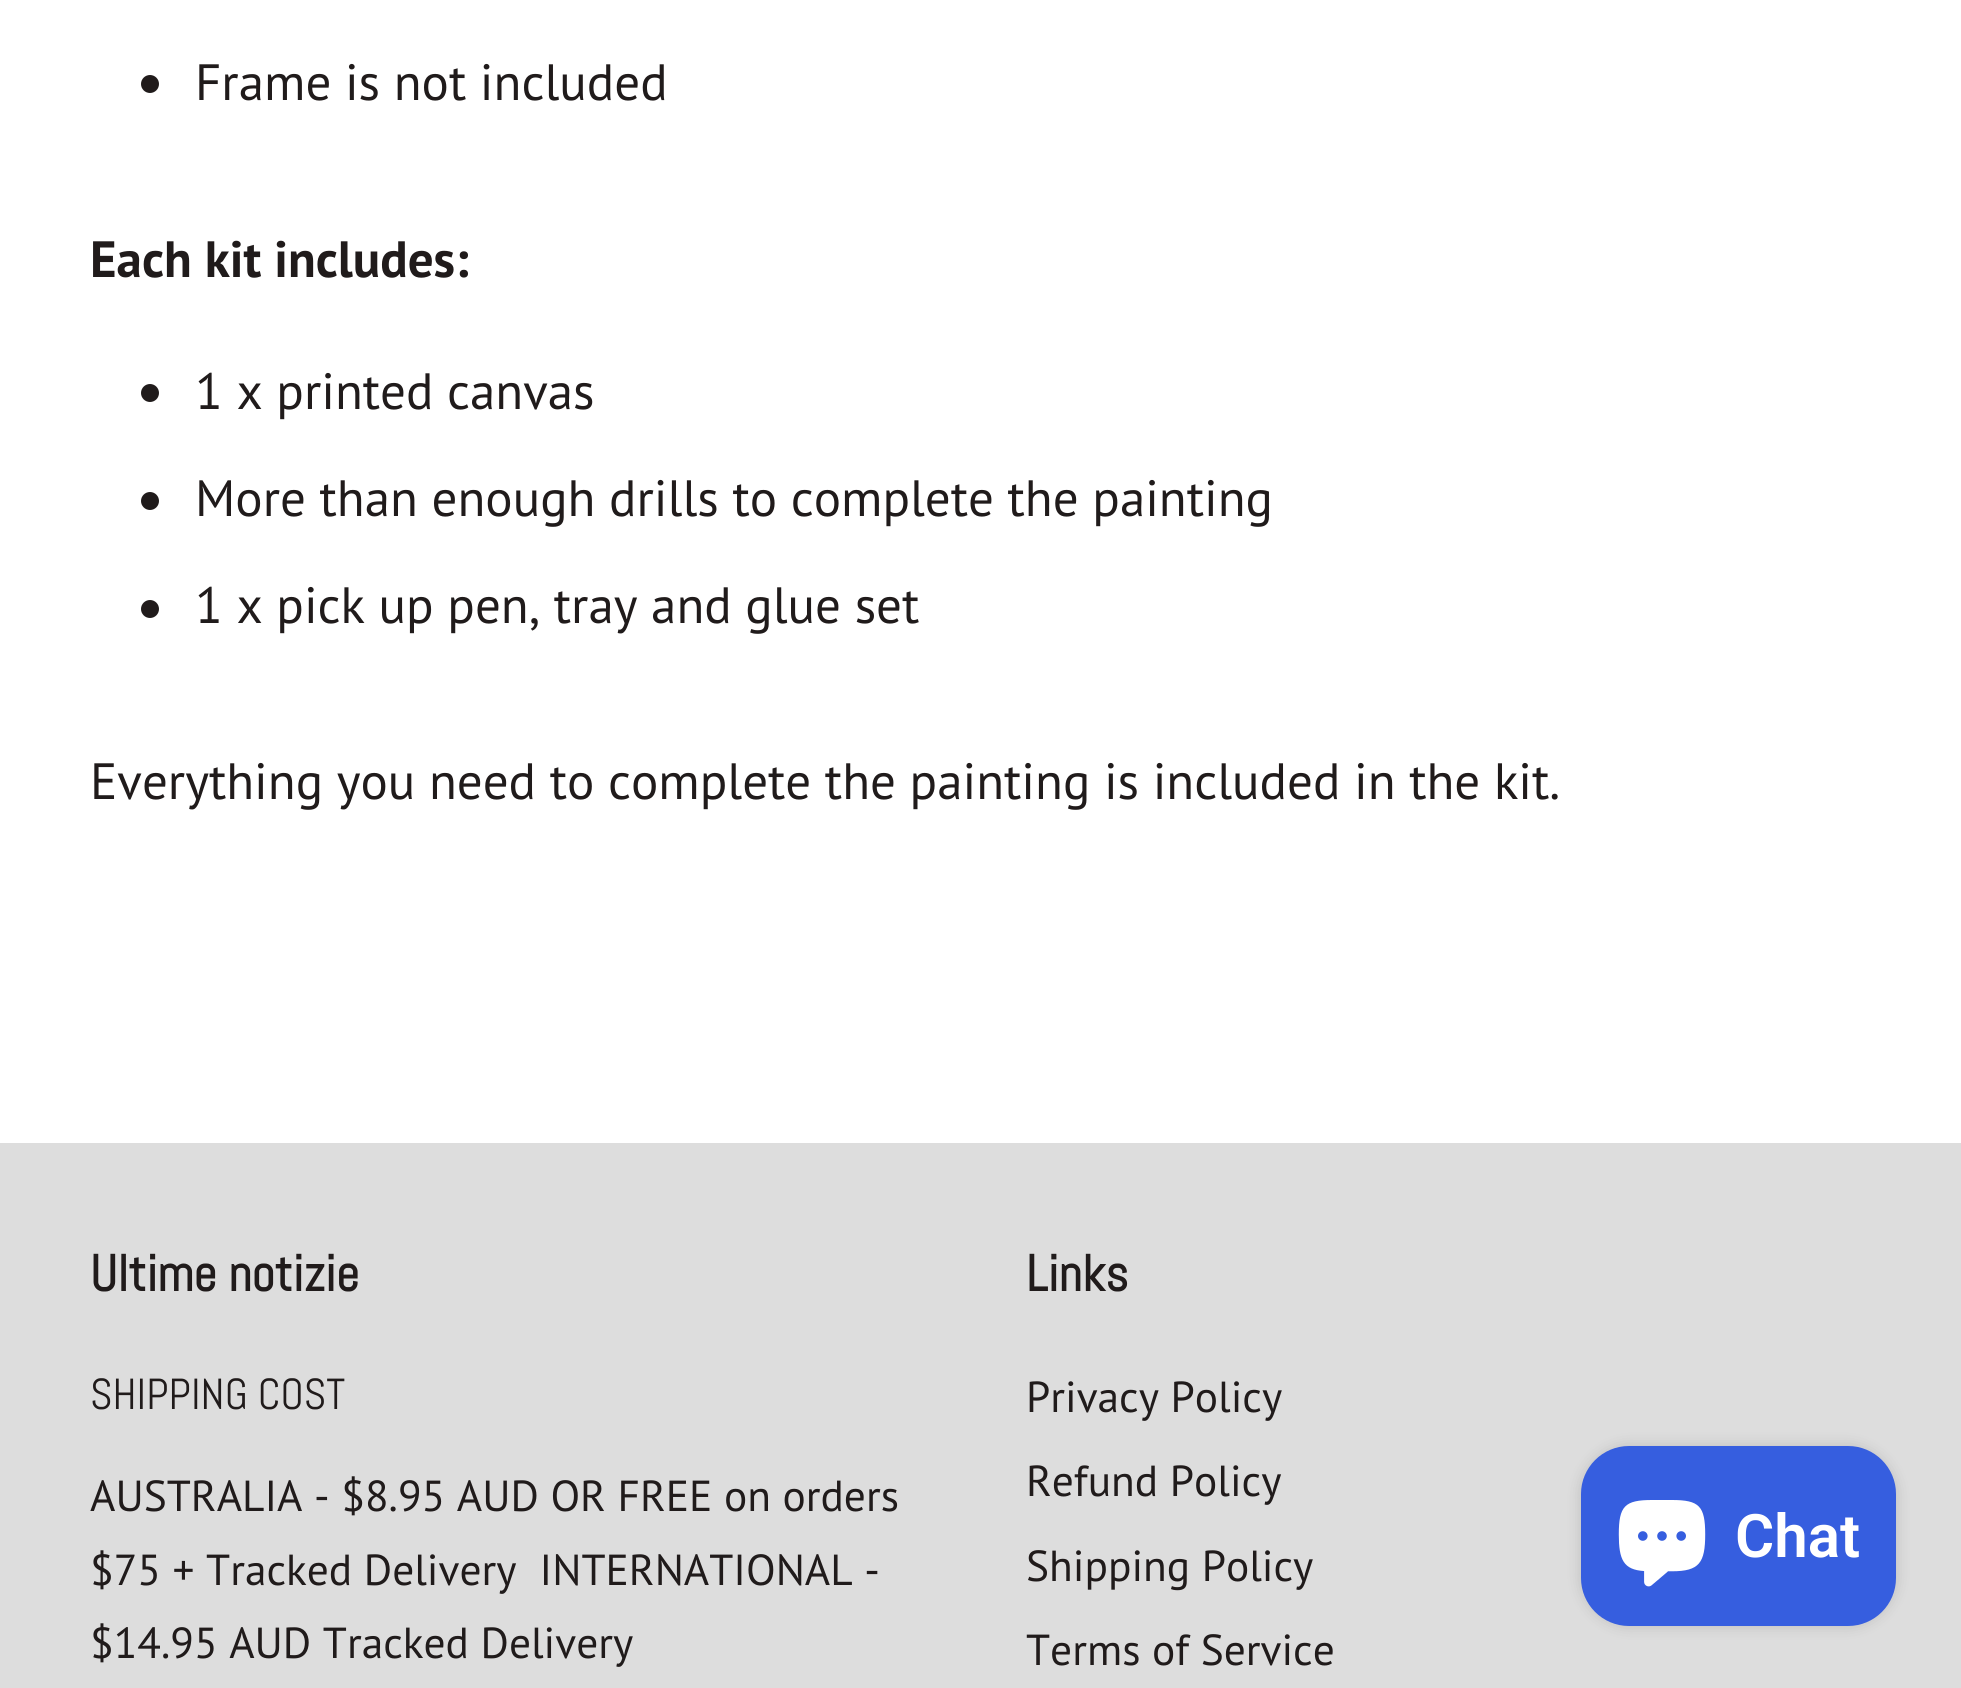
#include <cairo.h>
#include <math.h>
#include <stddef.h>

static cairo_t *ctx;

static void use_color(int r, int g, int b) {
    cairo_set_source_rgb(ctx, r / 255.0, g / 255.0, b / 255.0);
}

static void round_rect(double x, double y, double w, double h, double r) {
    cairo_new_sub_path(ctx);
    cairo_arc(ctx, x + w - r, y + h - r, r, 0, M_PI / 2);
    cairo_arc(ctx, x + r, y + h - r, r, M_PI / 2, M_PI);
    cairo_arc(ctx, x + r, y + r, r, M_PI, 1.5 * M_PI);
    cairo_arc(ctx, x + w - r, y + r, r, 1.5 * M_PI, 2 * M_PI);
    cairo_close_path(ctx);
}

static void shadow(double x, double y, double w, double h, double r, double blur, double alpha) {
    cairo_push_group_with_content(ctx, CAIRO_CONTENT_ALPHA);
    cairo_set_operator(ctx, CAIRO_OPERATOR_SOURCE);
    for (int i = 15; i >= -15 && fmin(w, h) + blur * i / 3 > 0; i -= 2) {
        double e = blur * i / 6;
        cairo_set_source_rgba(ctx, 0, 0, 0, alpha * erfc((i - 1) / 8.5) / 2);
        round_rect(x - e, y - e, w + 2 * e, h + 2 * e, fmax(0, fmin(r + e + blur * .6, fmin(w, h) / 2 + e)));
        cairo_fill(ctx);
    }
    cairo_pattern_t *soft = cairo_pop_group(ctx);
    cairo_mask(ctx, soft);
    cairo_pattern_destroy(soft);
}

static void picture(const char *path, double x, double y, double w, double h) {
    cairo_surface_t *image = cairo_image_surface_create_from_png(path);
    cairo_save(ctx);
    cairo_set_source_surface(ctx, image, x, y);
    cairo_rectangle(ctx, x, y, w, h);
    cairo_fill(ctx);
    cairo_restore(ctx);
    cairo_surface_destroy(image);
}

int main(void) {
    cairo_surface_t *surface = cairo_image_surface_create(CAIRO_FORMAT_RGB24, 1961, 1688);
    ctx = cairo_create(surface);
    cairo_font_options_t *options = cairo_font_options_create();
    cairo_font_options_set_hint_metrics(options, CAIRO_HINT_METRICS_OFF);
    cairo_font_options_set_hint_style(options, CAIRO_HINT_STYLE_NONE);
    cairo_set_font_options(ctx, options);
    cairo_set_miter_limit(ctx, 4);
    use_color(255, 255, 255);
    cairo_paint(ctx);
    use_color(32, 27, 27);
    cairo_arc(ctx, 150, 84, 9, 0, 2 * M_PI);
    cairo_fill(ctx);
    cairo_select_font_face(ctx, "PT Sans", CAIRO_FONT_SLANT_NORMAL, CAIRO_FONT_WEIGHT_NORMAL);
    cairo_set_font_size(ctx, 51);
    cairo_move_to(ctx, 195, 100);
    cairo_show_text(ctx, "Frame is not included");
    cairo_select_font_face(ctx, "PT Sans", CAIRO_FONT_SLANT_NORMAL, CAIRO_FONT_WEIGHT_BOLD);
    cairo_move_to(ctx, 90, 277);
    cairo_show_text(ctx, "Each kit includes:");
    cairo_new_path(ctx);
    cairo_arc(ctx, 150, 393, 9, 0, 2 * M_PI);
    cairo_fill(ctx);
    cairo_select_font_face(ctx, "PT Sans", CAIRO_FONT_SLANT_NORMAL, CAIRO_FONT_WEIGHT_NORMAL);
    cairo_move_to(ctx, 195, 409);
    cairo_show_text(ctx, "1 x printed canvas");
    cairo_new_path(ctx);
    cairo_arc(ctx, 150, 501, 9, 0, 2 * M_PI);
    cairo_fill(ctx);
    cairo_move_to(ctx, 195, 516);
    cairo_show_text(ctx, "More than enough drills to complete the painting");
    cairo_new_path(ctx);
    cairo_arc(ctx, 150, 609, 9, 0, 2 * M_PI);
    cairo_fill(ctx);
    cairo_move_to(ctx, 195, 623);
    cairo_show_text(ctx, "1 x pick up pen, tray and glue set");
    cairo_move_to(ctx, 90, 799);
    cairo_show_text(ctx, "Everything you need to complete the painting is included in the kit.");
    use_color(221, 221, 221);
    cairo_rectangle(ctx, 0, 1143, 1961, 545);
    cairo_fill(ctx);
    cairo_select_font_face(ctx, "Abel", CAIRO_FONT_SLANT_NORMAL, CAIRO_FONT_WEIGHT_BOLD);
    use_color(32, 27, 27);
    cairo_move_to(ctx, 90, 1291);
    cairo_show_text(ctx, "Ultime notizie");
    cairo_select_font_face(ctx, "Abel", CAIRO_FONT_SLANT_NORMAL, CAIRO_FONT_WEIGHT_NORMAL);
    cairo_set_font_size(ctx, 43.4);
    cairo_move_to(ctx, 90, 1409);
    cairo_show_text(ctx, "SHIPPING COST");
    cairo_select_font_face(ctx, "PT Sans", CAIRO_FONT_SLANT_NORMAL, CAIRO_FONT_WEIGHT_NORMAL);
    cairo_move_to(ctx, 90, 1511);
    cairo_show_text(ctx, "AUSTRALIA - $8.95 AUD OR FREE on orders");
    cairo_move_to(ctx, 90, 1585);
    cairo_show_text(ctx, "$75 + Tracked Delivery  INTERNATIONAL -");
    cairo_move_to(ctx, 90, 1658);
    cairo_show_text(ctx, "$14.95 AUD Tracked Delivery");
    cairo_select_font_face(ctx, "Abel", CAIRO_FONT_SLANT_NORMAL, CAIRO_FONT_WEIGHT_BOLD);
    cairo_set_font_size(ctx, 51);
    cairo_move_to(ctx, 1026, 1291);
    cairo_show_text(ctx, "Links");
    cairo_select_font_face(ctx, "PT Sans", CAIRO_FONT_SLANT_NORMAL, CAIRO_FONT_WEIGHT_NORMAL);
    cairo_set_font_size(ctx, 43.4);
    cairo_move_to(ctx, 1026, 1412);
    cairo_show_text(ctx, "Privacy Policy");
    cairo_move_to(ctx, 1026, 1496);
    cairo_show_text(ctx, "Refund Policy");
    cairo_move_to(ctx, 1026, 1581);
    cairo_show_text(ctx, "Shipping Policy");
    cairo_move_to(ctx, 1026, 1665);
    cairo_show_text(ctx, "Terms of Service");
    use_color(0, 0, 0);
    shadow(1581, 1446, 315, 180, 48, 7.5, 0.15);
    use_color(54, 94, 223);
    round_rect(1581, 1446, 315, 180, 48);
    cairo_fill(ctx);
    picture("img1.png", 1618, 1500, 88, 87);
    cairo_select_font_face(ctx, "Roboto SemiBold", CAIRO_FONT_SLANT_NORMAL, CAIRO_FONT_WEIGHT_NORMAL);
    cairo_set_font_size(ctx, 60);
    use_color(255, 255, 255);
    cairo_move_to(ctx, 1735, 1557);
    cairo_show_text(ctx, "Chat");
    cairo_surface_write_to_png(surface, "result.png");
    cairo_font_options_destroy(options);
    cairo_destroy(ctx);
    cairo_surface_destroy(surface);
    return 0;
}
